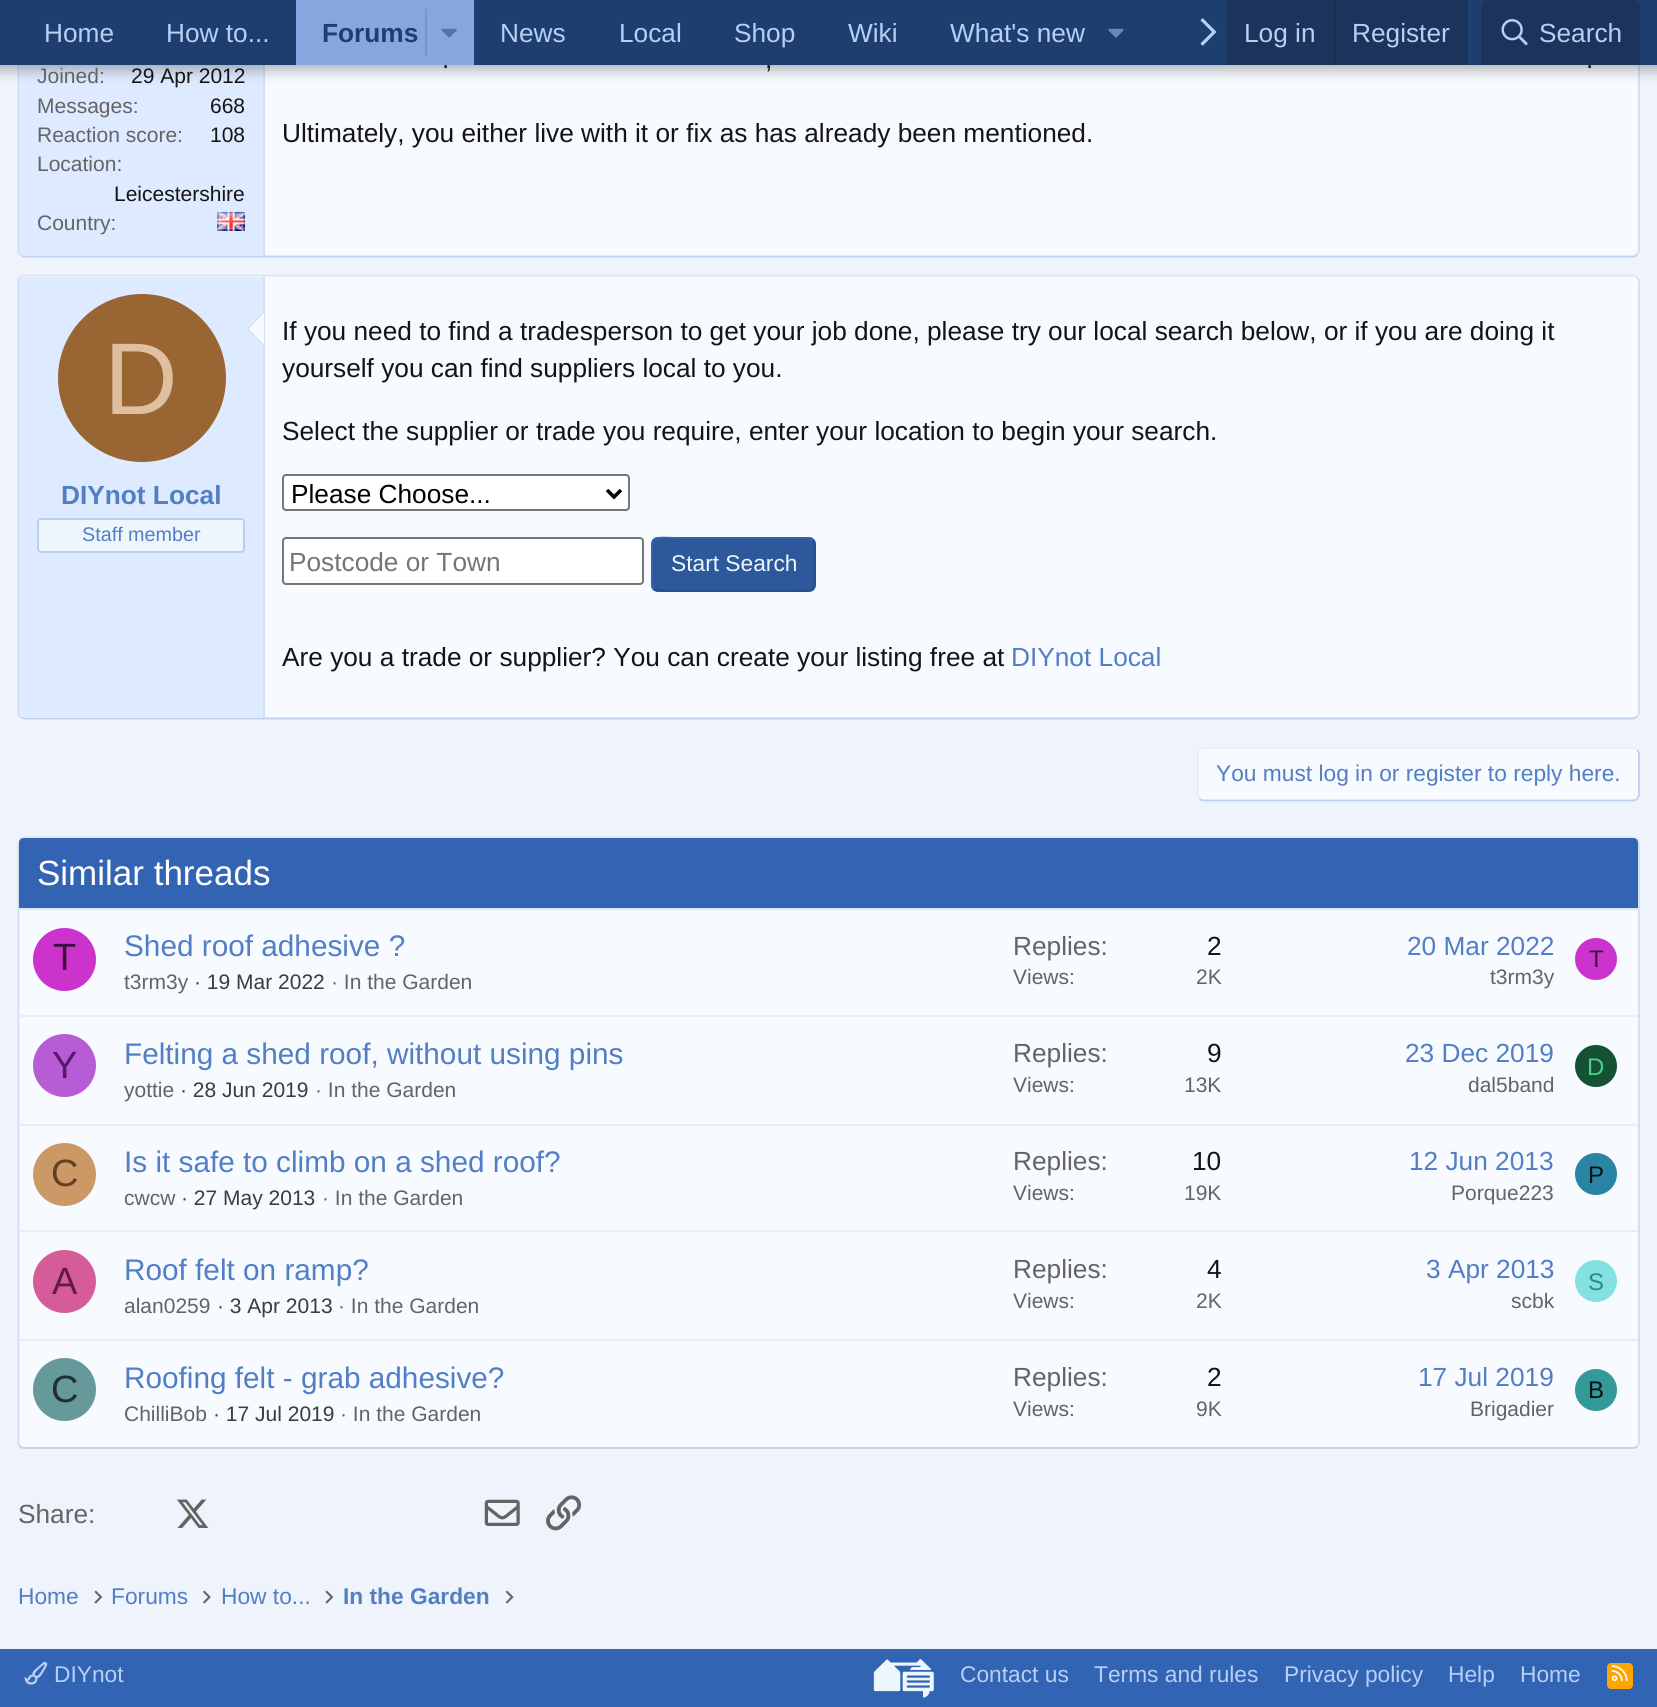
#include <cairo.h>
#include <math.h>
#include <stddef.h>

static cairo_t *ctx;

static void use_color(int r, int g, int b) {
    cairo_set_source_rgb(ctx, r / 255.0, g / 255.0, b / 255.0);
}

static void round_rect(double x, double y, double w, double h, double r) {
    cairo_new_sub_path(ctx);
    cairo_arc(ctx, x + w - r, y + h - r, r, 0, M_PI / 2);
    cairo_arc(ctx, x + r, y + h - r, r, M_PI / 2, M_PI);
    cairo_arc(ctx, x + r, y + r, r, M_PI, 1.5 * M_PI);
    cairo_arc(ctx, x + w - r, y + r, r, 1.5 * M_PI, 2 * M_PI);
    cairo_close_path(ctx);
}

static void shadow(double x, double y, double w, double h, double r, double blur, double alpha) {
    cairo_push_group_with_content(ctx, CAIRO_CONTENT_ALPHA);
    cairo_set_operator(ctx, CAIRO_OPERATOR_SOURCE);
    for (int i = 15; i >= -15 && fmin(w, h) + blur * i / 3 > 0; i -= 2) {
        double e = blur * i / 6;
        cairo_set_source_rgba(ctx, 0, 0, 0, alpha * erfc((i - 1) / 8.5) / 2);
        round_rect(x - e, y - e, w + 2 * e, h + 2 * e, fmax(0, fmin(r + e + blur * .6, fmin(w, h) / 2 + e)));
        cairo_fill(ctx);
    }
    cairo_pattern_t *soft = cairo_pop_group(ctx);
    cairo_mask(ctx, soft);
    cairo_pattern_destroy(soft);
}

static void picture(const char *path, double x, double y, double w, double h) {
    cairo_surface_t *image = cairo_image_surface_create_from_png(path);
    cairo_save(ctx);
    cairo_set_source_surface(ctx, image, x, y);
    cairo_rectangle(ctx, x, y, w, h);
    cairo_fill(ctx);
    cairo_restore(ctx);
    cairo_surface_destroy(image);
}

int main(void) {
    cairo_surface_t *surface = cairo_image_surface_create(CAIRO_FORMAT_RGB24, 1657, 1707);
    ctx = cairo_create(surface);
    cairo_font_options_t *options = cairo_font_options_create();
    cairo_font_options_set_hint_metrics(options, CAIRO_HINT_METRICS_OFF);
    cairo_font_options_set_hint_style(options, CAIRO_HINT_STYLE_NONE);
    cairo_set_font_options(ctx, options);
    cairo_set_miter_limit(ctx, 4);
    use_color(239, 243, 251);
    cairo_paint(ctx);
    use_color(247, 250, 255);
    round_rect(18, -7, 1622, 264, 7);
    cairo_fill(ctx);
    cairo_new_path(ctx);
    cairo_move_to(ctx, 1637, -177.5);
    cairo_curve_to(ctx, 1638, -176.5, 1639, -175, 1639, -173);
    cairo_line_to(ctx, 1639, 250);
    cairo_curve_to(ctx, 1639, 252, 1638, 253.5, 1637, 254.5);
    use_color(208, 221, 242);
    cairo_set_line_width(ctx, 1.8);
    cairo_stroke(ctx);
    cairo_new_path(ctx);
    cairo_move_to(ctx, 1637, 254.5);
    cairo_curve_to(ctx, 1636, 255.5, 1634.5, 256.5, 1633, 256.5);
    cairo_line_to(ctx, 24.5, 256.5);
    cairo_curve_to(ctx, 23, 256.5, 21.5, 255.5, 20, 254.5);
    use_color(188, 207, 236);
    cairo_stroke(ctx);
    cairo_new_path(ctx);
    cairo_move_to(ctx, 20, 254.5);
    cairo_curve_to(ctx, 19, 253.5, 18.5, 252, 18.5, 250);
    cairo_line_to(ctx, 18.5, -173);
    cairo_curve_to(ctx, 18.5, -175, 19, -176.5, 20, -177.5);
    use_color(208, 221, 242);
    cairo_stroke(ctx);
    use_color(222, 234, 255);
    cairo_new_path(ctx);
    cairo_move_to(ctx, 24, -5);
    cairo_line_to(ctx, 264, -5);
    cairo_line_to(ctx, 264, 256);
    cairo_line_to(ctx, 24, 256);
    cairo_curve_to(ctx, 21, 256, 19, 254, 19, 251);
    cairo_line_to(ctx, 19, 0);
    cairo_curve_to(ctx, 19, -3, 21, -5, 24, -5);
    cairo_close_path(ctx);
    cairo_fill(ctx);
    use_color(208, 221, 242);
    cairo_rectangle(ctx, 263, 65, 2, 191);
    cairo_fill(ctx);
    use_color(0, 0, 0);
    shadow(-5, -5, 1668, 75, 0, 7, 0.3);
    use_color(31, 62, 112);
    cairo_rectangle(ctx, 0, 0, 1657, 65);
    cairo_fill(ctx);
    cairo_select_font_face(ctx, "Liberation Sans", CAIRO_FONT_SLANT_NORMAL, CAIRO_FONT_WEIGHT_NORMAL);
    cairo_set_font_size(ctx, 26.25);
    use_color(184, 207, 245);
    cairo_move_to(ctx, 44, 42);
    cairo_show_text(ctx, "Home");
    cairo_move_to(ctx, 166, 42);
    cairo_show_text(ctx, "How to...");
    use_color(134, 167, 221);
    cairo_rectangle(ctx, 296, 0, 178, 65);
    cairo_fill(ctx);
    cairo_select_font_face(ctx, "Liberation Sans", CAIRO_FONT_SLANT_NORMAL, CAIRO_FONT_WEIGHT_BOLD);
    use_color(31, 62, 112);
    cairo_move_to(ctx, 322, 42);
    cairo_show_text(ctx, "Forums");
    use_color(116, 149, 202);
    cairo_rectangle(ctx, 425, 9, 2, 47);
    cairo_fill(ctx);
    picture("img1.png", 441, 28, 16, 10);
    cairo_select_font_face(ctx, "Liberation Sans", CAIRO_FONT_SLANT_NORMAL, CAIRO_FONT_WEIGHT_NORMAL);
    use_color(184, 207, 245);
    cairo_move_to(ctx, 500, 42);
    cairo_show_text(ctx, "News");
    cairo_move_to(ctx, 619, 42);
    cairo_show_text(ctx, "Local");
    cairo_move_to(ctx, 734, 42);
    cairo_show_text(ctx, "Shop");
    cairo_move_to(ctx, 848, 42);
    cairo_show_text(ctx, "Wiki");
    cairo_move_to(ctx, 950, 42);
    cairo_show_text(ctx, "What's new");
    picture("img2.png", 1108, 28, 16, 10);
    picture("img3.png", 1200, 18, 17, 28);
    use_color(28, 52, 91);
    cairo_rectangle(ctx, 1227, 0, 241, 65);
    cairo_fill(ctx);
    use_color(184, 207, 245);
    cairo_move_to(ctx, 1244, 42);
    cairo_show_text(ctx, "Log in");
    use_color(26, 45, 75);
    cairo_rectangle(ctx, 1334, 0, 2, 65);
    cairo_fill(ctx);
    use_color(184, 207, 245);
    cairo_move_to(ctx, 1352, 42);
    cairo_show_text(ctx, "Register");
    use_color(28, 52, 91);
    cairo_new_path(ctx);
    cairo_move_to(ctx, 1488, 0);
    cairo_line_to(ctx, 1633, 0);
    cairo_curve_to(ctx, 1637, 0, 1640, 3, 1640, 7);
    cairo_line_to(ctx, 1640, 65);
    cairo_line_to(ctx, 1481, 65);
    cairo_line_to(ctx, 1481, 7);
    cairo_curve_to(ctx, 1481, 3, 1484, 0, 1488, 0);
    cairo_close_path(ctx);
    cairo_fill(ctx);
    picture("img4.png", 1501, 19, 27, 27);
    use_color(184, 207, 245);
    cairo_move_to(ctx, 1539, 42);
    cairo_show_text(ctx, "Search");
    cairo_set_font_size(ctx, 21);
    use_color(100, 100, 100);
    cairo_move_to(ctx, 37, 83);
    cairo_show_text(ctx, "Joined:");
    use_color(20, 20, 20);
    cairo_move_to(ctx, 131, 83);
    cairo_show_text(ctx, "29 Apr 2012");
    use_color(100, 100, 100);
    cairo_move_to(ctx, 37, 113);
    cairo_show_text(ctx, "Messages:");
    use_color(20, 20, 20);
    cairo_move_to(ctx, 210, 113);
    cairo_show_text(ctx, "668");
    use_color(100, 100, 100);
    cairo_move_to(ctx, 37, 142);
    cairo_show_text(ctx, "Reaction score:");
    use_color(20, 20, 20);
    cairo_move_to(ctx, 210, 142);
    cairo_show_text(ctx, "108");
    use_color(100, 100, 100);
    cairo_move_to(ctx, 37, 171);
    cairo_show_text(ctx, "Location:");
    use_color(20, 20, 20);
    cairo_move_to(ctx, 114, 201);
    cairo_show_text(ctx, "Leicestershire");
    use_color(100, 100, 100);
    cairo_move_to(ctx, 37, 230);
    cairo_show_text(ctx, "Country:");
    picture("img5.png", 217, 211, 28, 20);
    cairo_set_font_size(ctx, 26.25);
    use_color(20, 20, 20);
    cairo_move_to(ctx, 442, 68);
    cairo_show_text(ctx, ".");
    cairo_move_to(ctx, 765, 68);
    cairo_show_text(ctx, ",");
    cairo_move_to(ctx, 1586, 68);
    cairo_show_text(ctx, ".");
    cairo_move_to(ctx, 282, 142);
    cairo_show_text(ctx, "Ultimately, you either live with it or fix as has already been mentioned.");
    use_color(247, 250, 255);
    round_rect(18, 275, 1622, 444, 7);
    cairo_fill(ctx);
    cairo_new_path(ctx);
    cairo_move_to(ctx, 20, 277.5);
    cairo_curve_to(ctx, 21.5, 276.5, 23, 275.5, 24.5, 275.5);
    cairo_line_to(ctx, 1633, 275.5);
    cairo_curve_to(ctx, 1634.5, 275.5, 1636, 276.5, 1637, 277.5);
    use_color(220, 230, 245);
    cairo_stroke(ctx);
    cairo_new_path(ctx);
    cairo_move_to(ctx, 1637, 277.5);
    cairo_curve_to(ctx, 1638, 278.5, 1639, 280, 1639, 282);
    cairo_line_to(ctx, 1639, 712);
    cairo_curve_to(ctx, 1639, 714, 1638, 715.5, 1637, 716.5);
    use_color(208, 221, 242);
    cairo_stroke(ctx);
    cairo_new_path(ctx);
    cairo_move_to(ctx, 1637, 716.5);
    cairo_curve_to(ctx, 1636, 717.5, 1634.5, 718.5, 1633, 718.5);
    cairo_line_to(ctx, 24.5, 718.5);
    cairo_curve_to(ctx, 23, 718.5, 21.5, 717.5, 20, 716.5);
    use_color(188, 207, 236);
    cairo_stroke(ctx);
    cairo_new_path(ctx);
    cairo_move_to(ctx, 20, 716.5);
    cairo_curve_to(ctx, 19, 715.5, 18.5, 714, 18.5, 712);
    cairo_line_to(ctx, 18.5, 282);
    cairo_curve_to(ctx, 18.5, 280, 19, 278.5, 20, 277.5);
    use_color(208, 221, 242);
    cairo_stroke(ctx);
    use_color(222, 234, 255);
    cairo_new_path(ctx);
    cairo_move_to(ctx, 24, 277);
    cairo_line_to(ctx, 264, 277);
    cairo_line_to(ctx, 264, 718);
    cairo_line_to(ctx, 24, 718);
    cairo_curve_to(ctx, 21, 718, 19, 716, 19, 713);
    cairo_line_to(ctx, 19, 282);
    cairo_curve_to(ctx, 19, 279, 21, 277, 24, 277);
    cairo_close_path(ctx);
    cairo_fill(ctx);
    use_color(208, 221, 242);
    cairo_rectangle(ctx, 263, 277, 2, 441);
    cairo_fill(ctx);
    cairo_new_path(ctx);
    cairo_move_to(ctx, 264, 311.5);
    cairo_line_to(ctx, 264, 346.5);
    cairo_line_to(ctx, 247, 329);
    cairo_close_path(ctx);
    cairo_fill(ctx);
    use_color(247, 250, 255);
    cairo_new_path(ctx);
    cairo_move_to(ctx, 264, 313);
    cairo_line_to(ctx, 264, 345);
    cairo_line_to(ctx, 248.5, 329);
    cairo_close_path(ctx);
    cairo_fill(ctx);
    use_color(153, 102, 51);
    cairo_arc(ctx, 142, 378, 84, 0, 2 * M_PI);
    cairo_fill(ctx);
    cairo_set_font_size(ctx, 102);
    use_color(223, 191, 159);
    cairo_move_to(ctx, 104, 414);
    cairo_show_text(ctx, "D");
    cairo_select_font_face(ctx, "Liberation Sans", CAIRO_FONT_SLANT_NORMAL, CAIRO_FONT_WEIGHT_BOLD);
    cairo_set_font_size(ctx, 26.25);
    use_color(82, 126, 197);
    cairo_move_to(ctx, 61, 504);
    cairo_show_text(ctx, "DIYnot Local");
    use_color(237, 246, 253);
    round_rect(38, 519, 206, 33, 3);
    cairo_fill_preserve(ctx);
    use_color(184, 207, 245);
    cairo_set_line_width(ctx, 2);
    cairo_stroke(ctx);
    cairo_select_font_face(ctx, "Liberation Sans", CAIRO_FONT_SLANT_NORMAL, CAIRO_FONT_WEIGHT_NORMAL);
    cairo_set_font_size(ctx, 19.75);
    use_color(82, 126, 197);
    cairo_move_to(ctx, 82, 541);
    cairo_show_text(ctx, "Staff member");
    cairo_set_font_size(ctx, 26.25);
    use_color(20, 20, 20);
    cairo_move_to(ctx, 282, 340);
    cairo_show_text(ctx, "If you need to find a tradesperson to get your job done, please try our local search below, or if you are doing it");
    cairo_move_to(ctx, 282, 377);
    cairo_show_text(ctx, "yourself you can find suppliers local to you.");
    cairo_move_to(ctx, 282, 440);
    cairo_show_text(ctx, "Select the supplier or trade you require, enter your location to begin your search.");
    use_color(255, 255, 255);
    round_rect(283, 475, 346, 35, 3);
    cairo_fill_preserve(ctx);
    use_color(118, 118, 118);
    cairo_stroke(ctx);
    cairo_new_path(ctx);
    cairo_move_to(ctx, 607, 490);
    cairo_line_to(ctx, 614, 497);
    cairo_line_to(ctx, 621, 490);
    use_color(0, 0, 0);
    cairo_set_line_width(ctx, 3.5);
    cairo_stroke(ctx);
    cairo_move_to(ctx, 291, 503);
    cairo_show_text(ctx, "Please Choose...");
    use_color(255, 255, 255);
    round_rect(283, 538, 360, 46, 3);
    cairo_fill_preserve(ctx);
    use_color(118, 118, 118);
    cairo_set_line_width(ctx, 2);
    cairo_stroke(ctx);
    use_color(117, 117, 117);
    cairo_move_to(ctx, 289, 571);
    cairo_show_text(ctx, "Postcode or Town");
    use_color(46, 88, 156);
    round_rect(651, 537, 165, 55, 7);
    cairo_fill(ctx);
    cairo_new_path(ctx);
    cairo_move_to(ctx, 813, 540);
    cairo_curve_to(ctx, 815.5, 542.5, 814.5, 547.5, 814.5, 551);
    cairo_line_to(ctx, 814.5, 564.5);
    cairo_curve_to(ctx, 814.5, 596.5, 818.5, 590.5, 783.5, 590.5);
    cairo_line_to(ctx, 658, 590.5);
    cairo_curve_to(ctx, 656.5, 590.5, 655, 590, 653.5, 589);
    use_color(40, 77, 136);
    cairo_set_line_width(ctx, 1.8);
    cairo_stroke(ctx);
    cairo_new_path(ctx);
    cairo_move_to(ctx, 653.5, 589);
    cairo_curve_to(ctx, 651, 586, 652, 581, 652, 578);
    cairo_line_to(ctx, 652, 564.5);
    cairo_curve_to(ctx, 652, 532.5, 648, 538, 683, 538);
    cairo_line_to(ctx, 808.5, 538);
    cairo_curve_to(ctx, 810, 538, 811.5, 539, 813, 540);
    use_color(52, 99, 176);
    cairo_stroke(ctx);
    cairo_set_font_size(ctx, 22.75);
    use_color(237, 246, 253);
    cairo_move_to(ctx, 671, 571);
    cairo_show_text(ctx, "Start Search");
    cairo_set_font_size(ctx, 26.25);
    use_color(20, 20, 20);
    cairo_move_to(ctx, 282, 666);
    cairo_show_text(ctx, "Are you a trade or supplier? You can create your listing free at");
    use_color(82, 126, 197);
    cairo_move_to(ctx, 1011, 666);
    cairo_show_text(ctx, "DIYnot Local");
    use_color(247, 250, 255);
    round_rect(1197, 747, 443, 55, 7);
    cairo_fill(ctx);
    cairo_new_path(ctx);
    cairo_move_to(ctx, 1637, 750);
    cairo_curve_to(ctx, 1638, 751, 1639, 752.5, 1639, 754);
    cairo_line_to(ctx, 1639, 794.5);
    cairo_curve_to(ctx, 1639, 796, 1638, 797.5, 1637, 799);
    cairo_curve_to(ctx, 1636, 800, 1634.5, 800.5, 1633, 800.5);
    cairo_line_to(ctx, 1204, 800.5);
    cairo_curve_to(ctx, 1202.5, 800.5, 1201, 800, 1199.5, 799);
    use_color(188, 207, 236);
    cairo_stroke(ctx);
    cairo_new_path(ctx);
    cairo_move_to(ctx, 1199.5, 799);
    cairo_curve_to(ctx, 1198.5, 797.5, 1198, 796, 1198, 794.5);
    cairo_line_to(ctx, 1198, 754);
    cairo_curve_to(ctx, 1198, 752.5, 1198.5, 751, 1199.5, 750);
    cairo_curve_to(ctx, 1201, 749, 1202.5, 748, 1204, 748);
    cairo_line_to(ctx, 1633, 748);
    cairo_curve_to(ctx, 1634.5, 748, 1636, 749, 1637, 750);
    use_color(228, 235, 248);
    cairo_stroke(ctx);
    cairo_set_font_size(ctx, 22.75);
    use_color(82, 126, 197);
    cairo_move_to(ctx, 1216, 781);
    cairo_show_text(ctx, "You must log in or register to reply here.");
    use_color(247, 250, 255);
    round_rect(18, 837, 1622, 612, 7);
    cairo_fill(ctx);
    cairo_new_path(ctx);
    cairo_move_to(ctx, 20, 839);
    cairo_curve_to(ctx, 21.5, 838, 23, 837.5, 24.5, 837.5);
    cairo_line_to(ctx, 1633, 837.5);
    cairo_curve_to(ctx, 1634.5, 837.5, 1636, 838, 1637, 839);
    use_color(220, 230, 245);
    cairo_stroke(ctx);
    cairo_new_path(ctx);
    cairo_move_to(ctx, 1637, 839);
    cairo_curve_to(ctx, 1638, 840.5, 1639, 842, 1639, 843.5);
    cairo_line_to(ctx, 1639, 1442);
    cairo_curve_to(ctx, 1639, 1443.5, 1638, 1445, 1637, 1446.5);
    use_color(208, 221, 242);
    cairo_stroke(ctx);
    cairo_new_path(ctx);
    cairo_move_to(ctx, 1637, 1446.5);
    cairo_curve_to(ctx, 1636, 1447.5, 1634.5, 1448, 1633, 1448);
    cairo_line_to(ctx, 24.5, 1448);
    cairo_curve_to(ctx, 23, 1448, 21.5, 1447.5, 20, 1446.5);
    use_color(188, 207, 236);
    cairo_stroke(ctx);
    cairo_new_path(ctx);
    cairo_move_to(ctx, 20, 1446.5);
    cairo_curve_to(ctx, 19, 1445, 18.5, 1443.5, 18.5, 1442);
    cairo_line_to(ctx, 18.5, 843.5);
    cairo_curve_to(ctx, 18.5, 842, 19, 840.5, 20, 839);
    use_color(208, 221, 242);
    cairo_stroke(ctx);
    use_color(50, 100, 179);
    cairo_new_path(ctx);
    cairo_move_to(ctx, 24, 838);
    cairo_line_to(ctx, 1633, 838);
    cairo_curve_to(ctx, 1636, 838, 1638, 840, 1638, 843);
    cairo_line_to(ctx, 1638, 910);
    cairo_line_to(ctx, 19, 910);
    cairo_line_to(ctx, 19, 843);
    cairo_curve_to(ctx, 19, 840, 21, 838, 24, 838);
    cairo_close_path(ctx);
    cairo_fill(ctx);
    use_color(220, 230, 245);
    cairo_rectangle(ctx, 19, 908, 1619, 2);
    cairo_fill(ctx);
    cairo_set_font_size(ctx, 35);
    use_color(255, 255, 255);
    cairo_move_to(ctx, 37, 885);
    cairo_show_text(ctx, "Similar threads");
    use_color(204, 51, 204);
    cairo_new_path(ctx);
    cairo_arc(ctx, 64.5, 959.5, 31.5, 0, 2 * M_PI);
    cairo_fill(ctx);
    cairo_set_font_size(ctx, 38);
    use_color(61, 15, 61);
    cairo_move_to(ctx, 53, 970);
    cairo_show_text(ctx, "T");
    cairo_set_font_size(ctx, 29.75);
    use_color(82, 126, 197);
    cairo_move_to(ctx, 124, 956);
    cairo_show_text(ctx, "Shed roof adhesive ?");
    cairo_set_font_size(ctx, 21);
    use_color(100, 100, 100);
    cairo_move_to(ctx, 124, 989);
    cairo_show_text(ctx, "t3rm3y");
    use_color(60, 60, 60);
    cairo_move_to(ctx, 194, 989);
    cairo_show_text(ctx, "· 19 Mar 2022");
    use_color(100, 100, 100);
    cairo_move_to(ctx, 331, 989);
    cairo_show_text(ctx, "· In the Garden");
    cairo_set_font_size(ctx, 26.25);
    cairo_move_to(ctx, 1013, 955);
    cairo_show_text(ctx, "Replies:");
    use_color(20, 20, 20);
    cairo_move_to(ctx, 1207, 955);
    cairo_show_text(ctx, "2");
    cairo_set_font_size(ctx, 21);
    use_color(100, 100, 100);
    cairo_move_to(ctx, 1013, 984);
    cairo_show_text(ctx, "Views:");
    cairo_move_to(ctx, 1196, 984);
    cairo_show_text(ctx, "2K");
    cairo_set_font_size(ctx, 26.25);
    use_color(82, 126, 197);
    cairo_move_to(ctx, 1407, 955);
    cairo_show_text(ctx, "20 Mar 2022");
    cairo_set_font_size(ctx, 21);
    use_color(100, 100, 100);
    cairo_move_to(ctx, 1490, 984);
    cairo_show_text(ctx, "t3rm3y");
    use_color(204, 51, 204);
    cairo_new_path(ctx);
    cairo_arc(ctx, 1596, 959, 21, 0, 2 * M_PI);
    cairo_fill(ctx);
    cairo_set_font_size(ctx, 24);
    use_color(61, 15, 61);
    cairo_move_to(ctx, 1589, 967);
    cairo_show_text(ctx, "T");
    use_color(232, 238, 249);
    cairo_rectangle(ctx, 19, 1015, 1619, 2);
    cairo_fill(ctx);
    use_color(184, 92, 214);
    cairo_arc(ctx, 64.5, 1065.5, 31.5, 0, 2 * M_PI);
    cairo_fill(ctx);
    cairo_set_font_size(ctx, 38);
    use_color(83, 26, 102);
    cairo_move_to(ctx, 52, 1078);
    cairo_show_text(ctx, "Y");
    cairo_set_font_size(ctx, 29.75);
    use_color(82, 126, 197);
    cairo_move_to(ctx, 124, 1064);
    cairo_show_text(ctx, "Felting a shed roof, without using pins");
    cairo_set_font_size(ctx, 21);
    use_color(100, 100, 100);
    cairo_move_to(ctx, 124, 1097);
    cairo_show_text(ctx, "yottie");
    use_color(60, 60, 60);
    cairo_move_to(ctx, 180, 1097);
    cairo_show_text(ctx, "· 28 Jun 2019");
    use_color(100, 100, 100);
    cairo_move_to(ctx, 315, 1097);
    cairo_show_text(ctx, "· In the Garden");
    cairo_set_font_size(ctx, 26.25);
    cairo_move_to(ctx, 1013, 1062);
    cairo_show_text(ctx, "Replies:");
    use_color(20, 20, 20);
    cairo_move_to(ctx, 1207, 1062);
    cairo_show_text(ctx, "9");
    cairo_set_font_size(ctx, 21);
    use_color(100, 100, 100);
    cairo_move_to(ctx, 1013, 1092);
    cairo_show_text(ctx, "Views:");
    cairo_move_to(ctx, 1184, 1092);
    cairo_show_text(ctx, "13K");
    cairo_set_font_size(ctx, 26.25);
    use_color(82, 126, 197);
    cairo_move_to(ctx, 1405, 1062);
    cairo_show_text(ctx, "23 Dec 2019");
    cairo_set_font_size(ctx, 21);
    use_color(100, 100, 100);
    cairo_move_to(ctx, 1468, 1092);
    cairo_show_text(ctx, "dal5band");
    use_color(20, 82, 51);
    cairo_new_path(ctx);
    cairo_arc(ctx, 1596, 1066, 21, 0, 2 * M_PI);
    cairo_fill(ctx);
    cairo_set_font_size(ctx, 24);
    use_color(71, 209, 140);
    cairo_move_to(ctx, 1587, 1075);
    cairo_show_text(ctx, "D");
    use_color(232, 238, 249);
    cairo_rectangle(ctx, 19, 1124, 1619, 2);
    cairo_fill(ctx);
    use_color(204, 153, 102);
    cairo_arc(ctx, 64.5, 1174.5, 31.5, 0, 2 * M_PI);
    cairo_fill(ctx);
    cairo_set_font_size(ctx, 38);
    use_color(96, 64, 32);
    cairo_move_to(ctx, 51, 1186);
    cairo_show_text(ctx, "C");
    cairo_set_font_size(ctx, 29.75);
    use_color(82, 126, 197);
    cairo_move_to(ctx, 124, 1172);
    cairo_show_text(ctx, "Is it safe to climb on a shed roof?");
    cairo_set_font_size(ctx, 21);
    use_color(100, 100, 100);
    cairo_move_to(ctx, 124, 1205);
    cairo_show_text(ctx, "cwcw");
    use_color(60, 60, 60);
    cairo_move_to(ctx, 181, 1205);
    cairo_show_text(ctx, "· 27 May 2013");
    use_color(100, 100, 100);
    cairo_move_to(ctx, 322, 1205);
    cairo_show_text(ctx, "· In the Garden");
    cairo_set_font_size(ctx, 26.25);
    cairo_move_to(ctx, 1013, 1170);
    cairo_show_text(ctx, "Replies:");
    use_color(20, 20, 20);
    cairo_move_to(ctx, 1192, 1170);
    cairo_show_text(ctx, "10");
    cairo_set_font_size(ctx, 21);
    use_color(100, 100, 100);
    cairo_move_to(ctx, 1013, 1200);
    cairo_show_text(ctx, "Views:");
    cairo_move_to(ctx, 1184, 1200);
    cairo_show_text(ctx, "19K");
    cairo_set_font_size(ctx, 26.25);
    use_color(82, 126, 197);
    cairo_move_to(ctx, 1409, 1170);
    cairo_show_text(ctx, "12 Jun 2013");
    cairo_set_font_size(ctx, 21);
    use_color(100, 100, 100);
    cairo_move_to(ctx, 1451, 1200);
    cairo_show_text(ctx, "Porque223");
    use_color(41, 133, 163);
    cairo_new_path(ctx);
    cairo_arc(ctx, 1596, 1174, 21, 0, 2 * M_PI);
    cairo_fill(ctx);
    cairo_set_font_size(ctx, 24);
    use_color(5, 17, 20);
    cairo_move_to(ctx, 1588, 1183);
    cairo_show_text(ctx, "P");
    use_color(232, 238, 249);
    cairo_rectangle(ctx, 19, 1230, 1619, 2);
    cairo_fill(ctx);
    use_color(214, 92, 153);
    cairo_arc(ctx, 64.5, 1281.5, 31.5, 0, 2 * M_PI);
    cairo_fill(ctx);
    cairo_set_font_size(ctx, 38);
    use_color(102, 26, 64);
    cairo_move_to(ctx, 52, 1294);
    cairo_show_text(ctx, "A");
    cairo_set_font_size(ctx, 29.75);
    use_color(82, 126, 197);
    cairo_move_to(ctx, 124, 1280);
    cairo_show_text(ctx, "Roof felt on ramp?");
    cairo_set_font_size(ctx, 21);
    use_color(100, 100, 100);
    cairo_move_to(ctx, 124, 1313);
    cairo_show_text(ctx, "alan0259");
    use_color(60, 60, 60);
    cairo_move_to(ctx, 217, 1313);
    cairo_show_text(ctx, "· 3 Apr 2013");
    use_color(100, 100, 100);
    cairo_move_to(ctx, 338, 1313);
    cairo_show_text(ctx, "· In the Garden");
    cairo_set_font_size(ctx, 26.25);
    cairo_move_to(ctx, 1013, 1278);
    cairo_show_text(ctx, "Replies:");
    use_color(20, 20, 20);
    cairo_move_to(ctx, 1207, 1278);
    cairo_show_text(ctx, "4");
    cairo_set_font_size(ctx, 21);
    use_color(100, 100, 100);
    cairo_move_to(ctx, 1013, 1308);
    cairo_show_text(ctx, "Views:");
    cairo_move_to(ctx, 1196, 1308);
    cairo_show_text(ctx, "2K");
    cairo_set_font_size(ctx, 26.25);
    use_color(82, 126, 197);
    cairo_move_to(ctx, 1426, 1278);
    cairo_show_text(ctx, "3 Apr 2013");
    cairo_set_font_size(ctx, 21);
    use_color(100, 100, 100);
    cairo_move_to(ctx, 1511, 1308);
    cairo_show_text(ctx, "scbk");
    use_color(133, 224, 224);
    cairo_new_path(ctx);
    cairo_arc(ctx, 1596, 1281, 21, 0, 2 * M_PI);
    cairo_fill(ctx);
    cairo_set_font_size(ctx, 24);
    use_color(36, 143, 143);
    cairo_move_to(ctx, 1588, 1290);
    cairo_show_text(ctx, "S");
    use_color(232, 238, 249);
    cairo_rectangle(ctx, 19, 1339, 1619, 2);
    cairo_fill(ctx);
    use_color(102, 153, 153);
    cairo_arc(ctx, 64.5, 1389.5, 31.5, 0, 2 * M_PI);
    cairo_fill(ctx);
    cairo_set_font_size(ctx, 38);
    use_color(31, 46, 46);
    cairo_move_to(ctx, 51, 1402);
    cairo_show_text(ctx, "C");
    cairo_set_font_size(ctx, 29.75);
    use_color(82, 126, 197);
    cairo_move_to(ctx, 124, 1388);
    cairo_show_text(ctx, "Roofing felt - grab adhesive?");
    cairo_set_font_size(ctx, 21);
    use_color(100, 100, 100);
    cairo_move_to(ctx, 124, 1421);
    cairo_show_text(ctx, "ChilliBob");
    use_color(60, 60, 60);
    cairo_move_to(ctx, 213, 1421);
    cairo_show_text(ctx, "· 17 Jul 2019");
    use_color(100, 100, 100);
    cairo_move_to(ctx, 340, 1421);
    cairo_show_text(ctx, "· In the Garden");
    cairo_set_font_size(ctx, 26.25);
    cairo_move_to(ctx, 1013, 1386);
    cairo_show_text(ctx, "Replies:");
    use_color(20, 20, 20);
    cairo_move_to(ctx, 1207, 1386);
    cairo_show_text(ctx, "2");
    cairo_set_font_size(ctx, 21);
    use_color(100, 100, 100);
    cairo_move_to(ctx, 1013, 1416);
    cairo_show_text(ctx, "Views:");
    cairo_move_to(ctx, 1196, 1416);
    cairo_show_text(ctx, "9K");
    cairo_set_font_size(ctx, 26.25);
    use_color(82, 126, 197);
    cairo_move_to(ctx, 1418, 1386);
    cairo_show_text(ctx, "17 Jul 2019");
    cairo_set_font_size(ctx, 21);
    use_color(100, 100, 100);
    cairo_move_to(ctx, 1470, 1416);
    cairo_show_text(ctx, "Brigadier");
    use_color(51, 153, 153);
    cairo_new_path(ctx);
    cairo_arc(ctx, 1596, 1390, 21, 0, 2 * M_PI);
    cairo_fill(ctx);
    cairo_set_font_size(ctx, 24);
    use_color(5, 17, 20);
    cairo_move_to(ctx, 1588, 1398);
    cairo_show_text(ctx, "B");
    cairo_set_font_size(ctx, 26.25);
    use_color(100, 100, 100);
    cairo_move_to(ctx, 18, 1523);
    cairo_show_text(ctx, "Share:");
    picture("img6.png", 177, 1499, 32, 29);
    picture("img7.png", 484, 1499, 36, 27);
    picture("img8.png", 546, 1495, 36, 36);
    cairo_set_font_size(ctx, 22.75);
    use_color(82, 126, 197);
    cairo_move_to(ctx, 18, 1604);
    cairo_show_text(ctx, "Home");
    picture("img9.png", 94, 1590, 9, 14);
    cairo_move_to(ctx, 111, 1604);
    cairo_show_text(ctx, "Forums");
    picture("img10.png", 203, 1590, 8, 14);
    cairo_move_to(ctx, 221, 1604);
    cairo_show_text(ctx, "How to...");
    picture("img9.png", 325, 1590, 9, 14);
    cairo_select_font_face(ctx, "Liberation Sans", CAIRO_FONT_SLANT_NORMAL, CAIRO_FONT_WEIGHT_BOLD);
    cairo_move_to(ctx, 343, 1604);
    cairo_show_text(ctx, "In the Garden");
    picture("img11.png", 505, 1590, 9, 14);
    use_color(50, 100, 180);
    cairo_rectangle(ctx, 0, 1649, 1657, 58);
    cairo_fill(ctx);
    picture("img12.png", 24, 1661, 24, 24);
    cairo_select_font_face(ctx, "Liberation Sans", CAIRO_FONT_SLANT_NORMAL, CAIRO_FONT_WEIGHT_NORMAL);
    use_color(184, 207, 245);
    cairo_move_to(ctx, 54, 1682);
    cairo_show_text(ctx, "DIYnot");
    picture("img13.png", 873, 1659, 61, 39);
    cairo_move_to(ctx, 960, 1682);
    cairo_show_text(ctx, "Contact us");
    cairo_move_to(ctx, 1094, 1682);
    cairo_show_text(ctx, "Terms and rules");
    cairo_move_to(ctx, 1284, 1682);
    cairo_show_text(ctx, "Privacy policy");
    cairo_move_to(ctx, 1448, 1682);
    cairo_show_text(ctx, "Help");
    cairo_move_to(ctx, 1520, 1682);
    cairo_show_text(ctx, "Home");
    use_color(255, 165, 0);
    round_rect(1607, 1663, 26, 26, 4);
    cairo_fill(ctx);
    picture("img14.png", 1611, 1665, 17, 17);
    cairo_surface_write_to_png(surface, "result.png");
    cairo_font_options_destroy(options);
    cairo_destroy(ctx);
    cairo_surface_destroy(surface);
    return 0;
}
